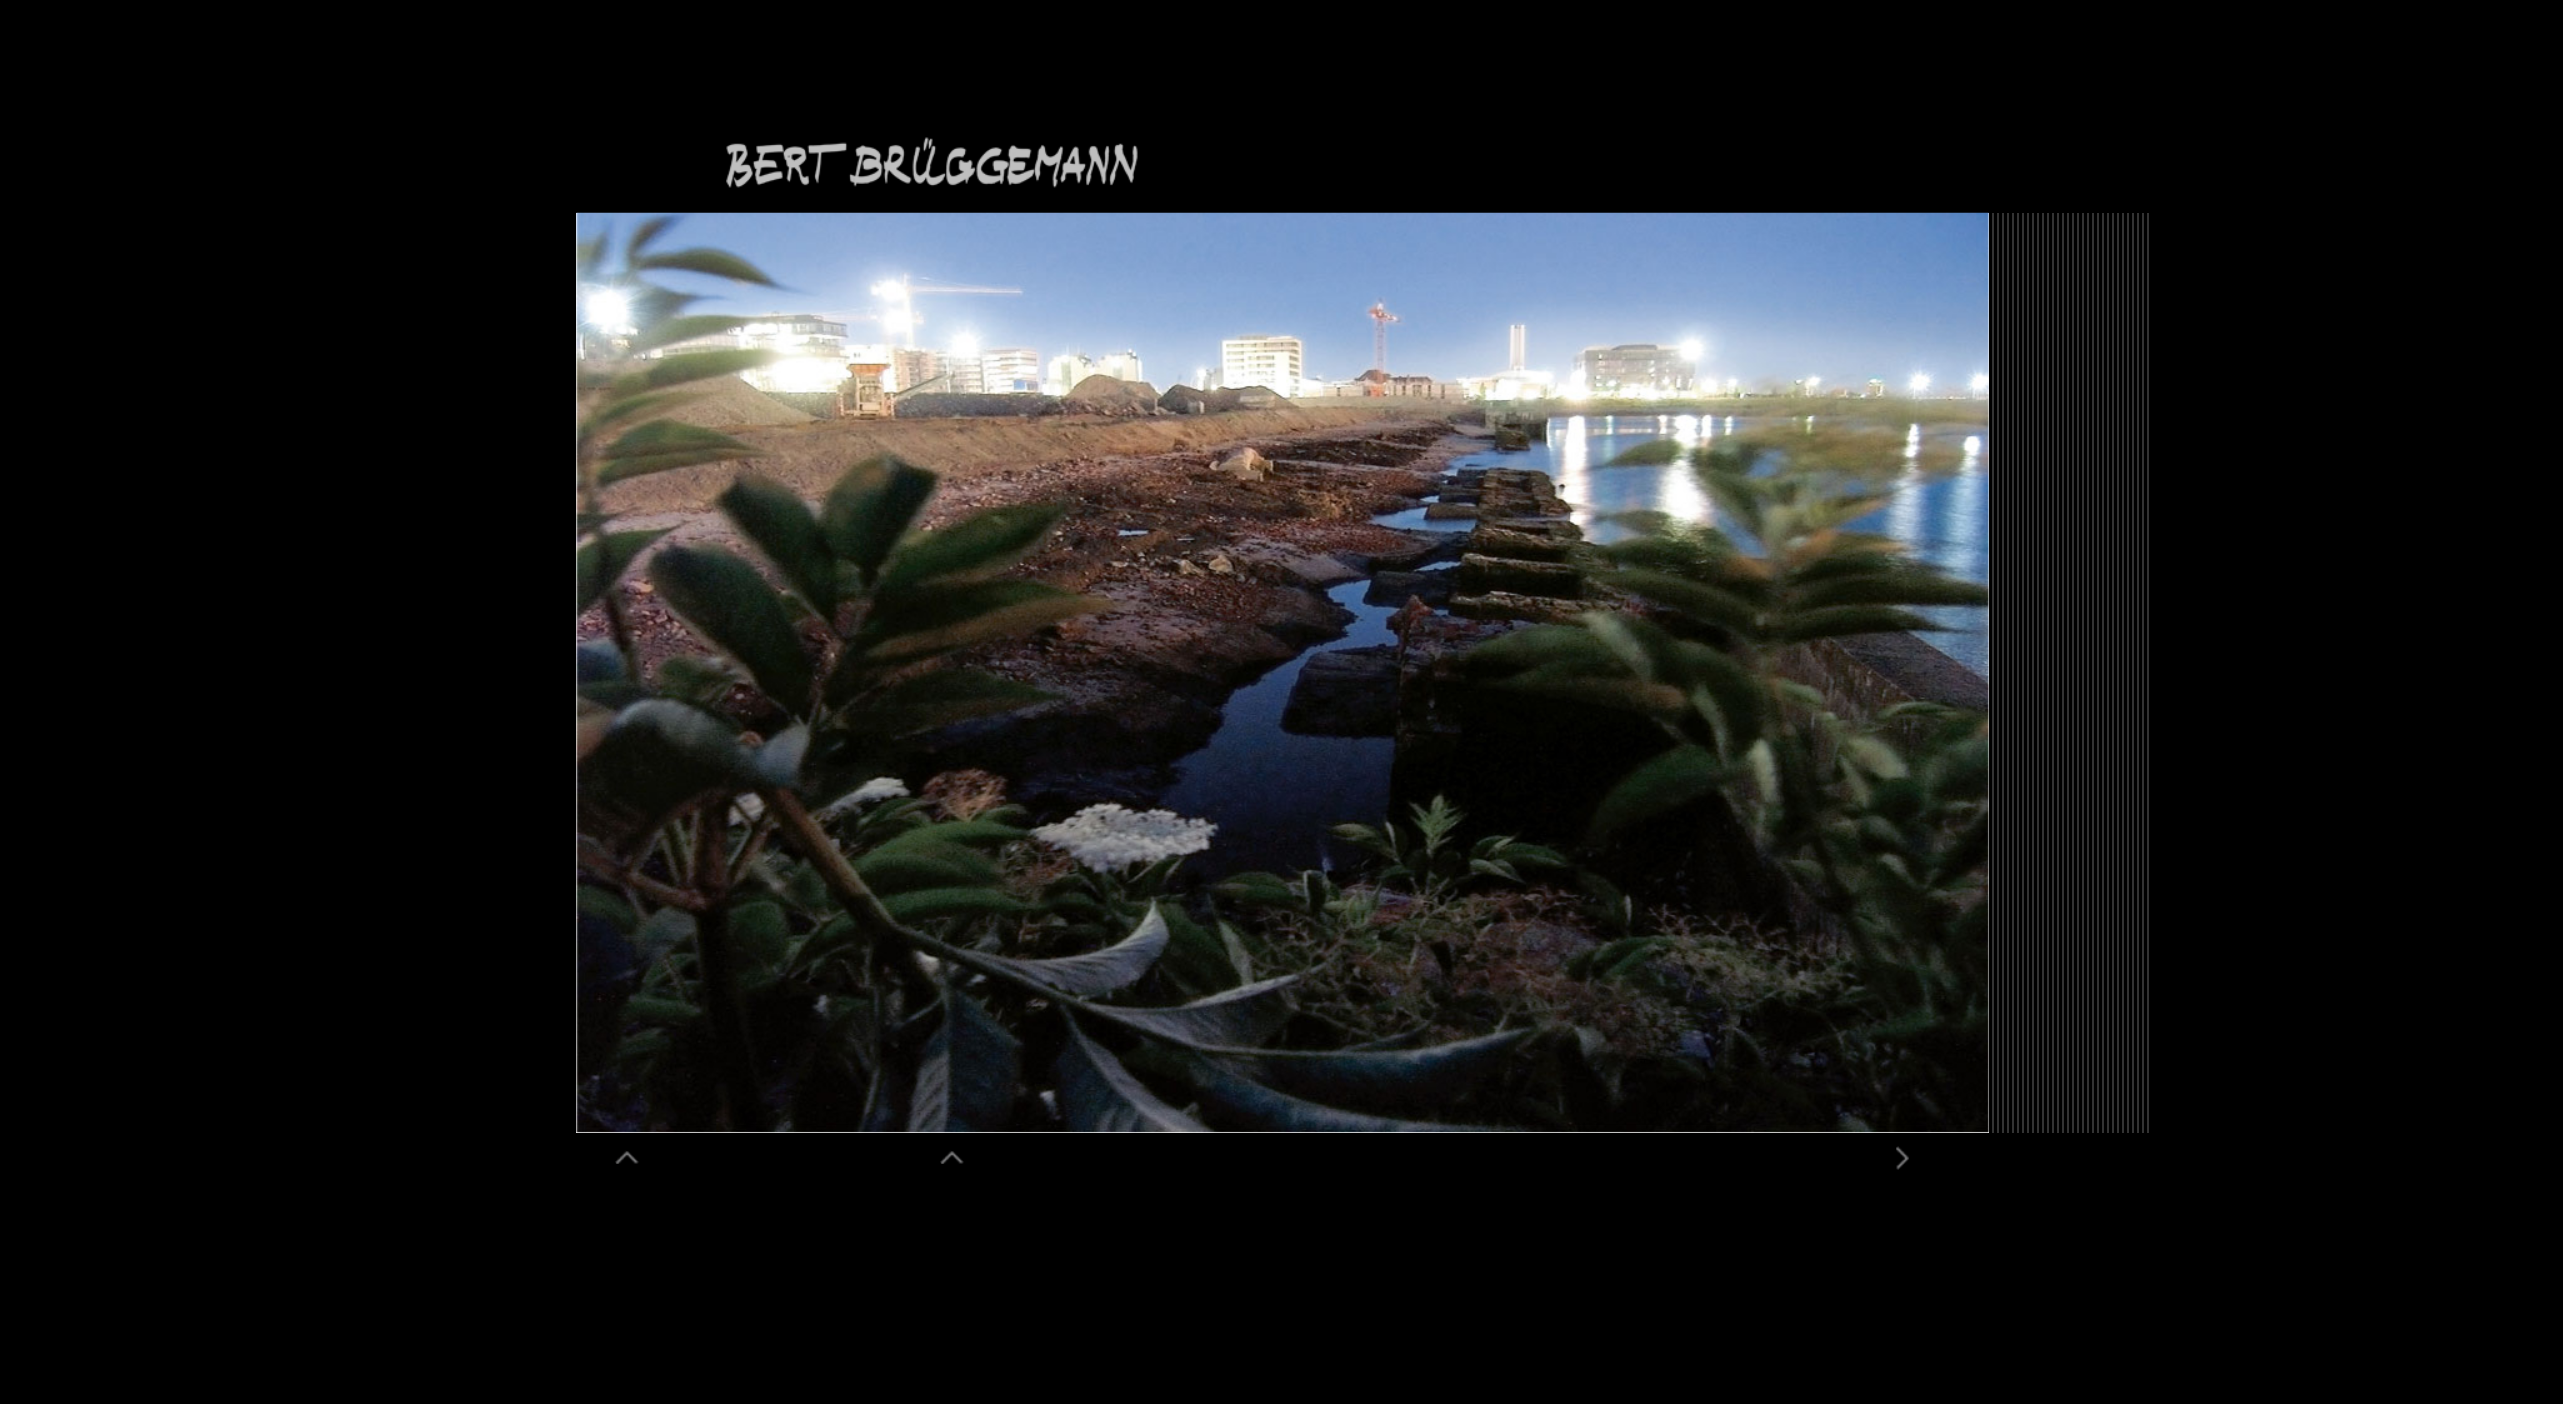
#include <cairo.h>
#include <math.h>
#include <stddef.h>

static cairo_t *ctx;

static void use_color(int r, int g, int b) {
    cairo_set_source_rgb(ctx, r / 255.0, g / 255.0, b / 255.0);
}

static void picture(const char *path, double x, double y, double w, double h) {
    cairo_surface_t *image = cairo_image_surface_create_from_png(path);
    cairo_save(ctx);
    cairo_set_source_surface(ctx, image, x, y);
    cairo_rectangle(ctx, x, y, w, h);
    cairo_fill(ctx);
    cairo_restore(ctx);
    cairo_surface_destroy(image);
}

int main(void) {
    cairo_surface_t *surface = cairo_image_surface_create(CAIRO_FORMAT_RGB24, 2563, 1404);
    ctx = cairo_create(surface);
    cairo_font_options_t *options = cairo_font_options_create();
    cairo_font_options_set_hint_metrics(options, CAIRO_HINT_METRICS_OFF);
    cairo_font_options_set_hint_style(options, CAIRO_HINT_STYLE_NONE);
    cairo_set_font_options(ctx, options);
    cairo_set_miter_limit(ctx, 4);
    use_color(0, 0, 0);
    cairo_paint(ctx);
    picture("img1.png", 726, 137, 412, 51);
    use_color(255, 255, 255);
    cairo_rectangle(ctx, 576, 213, 1413, 920);
    cairo_fill(ctx);
    picture("img2.png", 576, 212, 1413, 921);
    use_color(51, 51, 51);
    cairo_rectangle(ctx, 1992, 213, 2, 920);
    cairo_fill(ctx);
    cairo_rectangle(ctx, 1997, 213, 2, 920);
    cairo_fill(ctx);
    cairo_rectangle(ctx, 2002, 213, 2, 920);
    cairo_fill(ctx);
    cairo_rectangle(ctx, 2007, 213, 2, 920);
    cairo_fill(ctx);
    cairo_rectangle(ctx, 2012, 213, 2, 920);
    cairo_fill(ctx);
    cairo_rectangle(ctx, 2017, 213, 2, 920);
    cairo_fill(ctx);
    cairo_rectangle(ctx, 2022, 213, 2, 920);
    cairo_fill(ctx);
    cairo_rectangle(ctx, 2027, 213, 2, 920);
    cairo_fill(ctx);
    cairo_rectangle(ctx, 2032, 213, 2, 920);
    cairo_fill(ctx);
    cairo_rectangle(ctx, 2037, 213, 2, 920);
    cairo_fill(ctx);
    cairo_rectangle(ctx, 2042, 213, 2, 920);
    cairo_fill(ctx);
    cairo_rectangle(ctx, 2047, 213, 2, 920);
    cairo_fill(ctx);
    cairo_rectangle(ctx, 2052, 213, 2, 920);
    cairo_fill(ctx);
    cairo_rectangle(ctx, 2057, 213, 2, 920);
    cairo_fill(ctx);
    cairo_rectangle(ctx, 2062, 213, 2, 920);
    cairo_fill(ctx);
    cairo_rectangle(ctx, 2067, 213, 2, 920);
    cairo_fill(ctx);
    cairo_rectangle(ctx, 2072, 213, 2, 920);
    cairo_fill(ctx);
    cairo_rectangle(ctx, 2077, 213, 2, 920);
    cairo_fill(ctx);
    cairo_rectangle(ctx, 2082, 213, 2, 920);
    cairo_fill(ctx);
    cairo_rectangle(ctx, 2087, 213, 2, 920);
    cairo_fill(ctx);
    cairo_rectangle(ctx, 2092, 213, 2, 920);
    cairo_fill(ctx);
    cairo_rectangle(ctx, 2097, 213, 2, 920);
    cairo_fill(ctx);
    cairo_rectangle(ctx, 2102, 213, 2, 920);
    cairo_fill(ctx);
    cairo_rectangle(ctx, 2107, 213, 2, 920);
    cairo_fill(ctx);
    cairo_rectangle(ctx, 2112, 213, 2, 920);
    cairo_fill(ctx);
    cairo_rectangle(ctx, 2117, 213, 2, 920);
    cairo_fill(ctx);
    cairo_rectangle(ctx, 2122, 213, 2, 920);
    cairo_fill(ctx);
    cairo_rectangle(ctx, 2127, 213, 2, 920);
    cairo_fill(ctx);
    cairo_rectangle(ctx, 2132, 213, 2, 920);
    cairo_fill(ctx);
    cairo_rectangle(ctx, 2137, 213, 2, 920);
    cairo_fill(ctx);
    cairo_rectangle(ctx, 2142, 213, 2, 920);
    cairo_fill(ctx);
    cairo_rectangle(ctx, 2147, 213, 2, 920);
    cairo_fill(ctx);
    picture("img3.png", 615, 1150, 24, 14);
    picture("img4.png", 940, 1150, 24, 14);
    picture("img5.png", 1896, 1146, 13, 24);
    cairo_surface_write_to_png(surface, "result.png");
    cairo_font_options_destroy(options);
    cairo_destroy(ctx);
    cairo_surface_destroy(surface);
    return 0;
}
